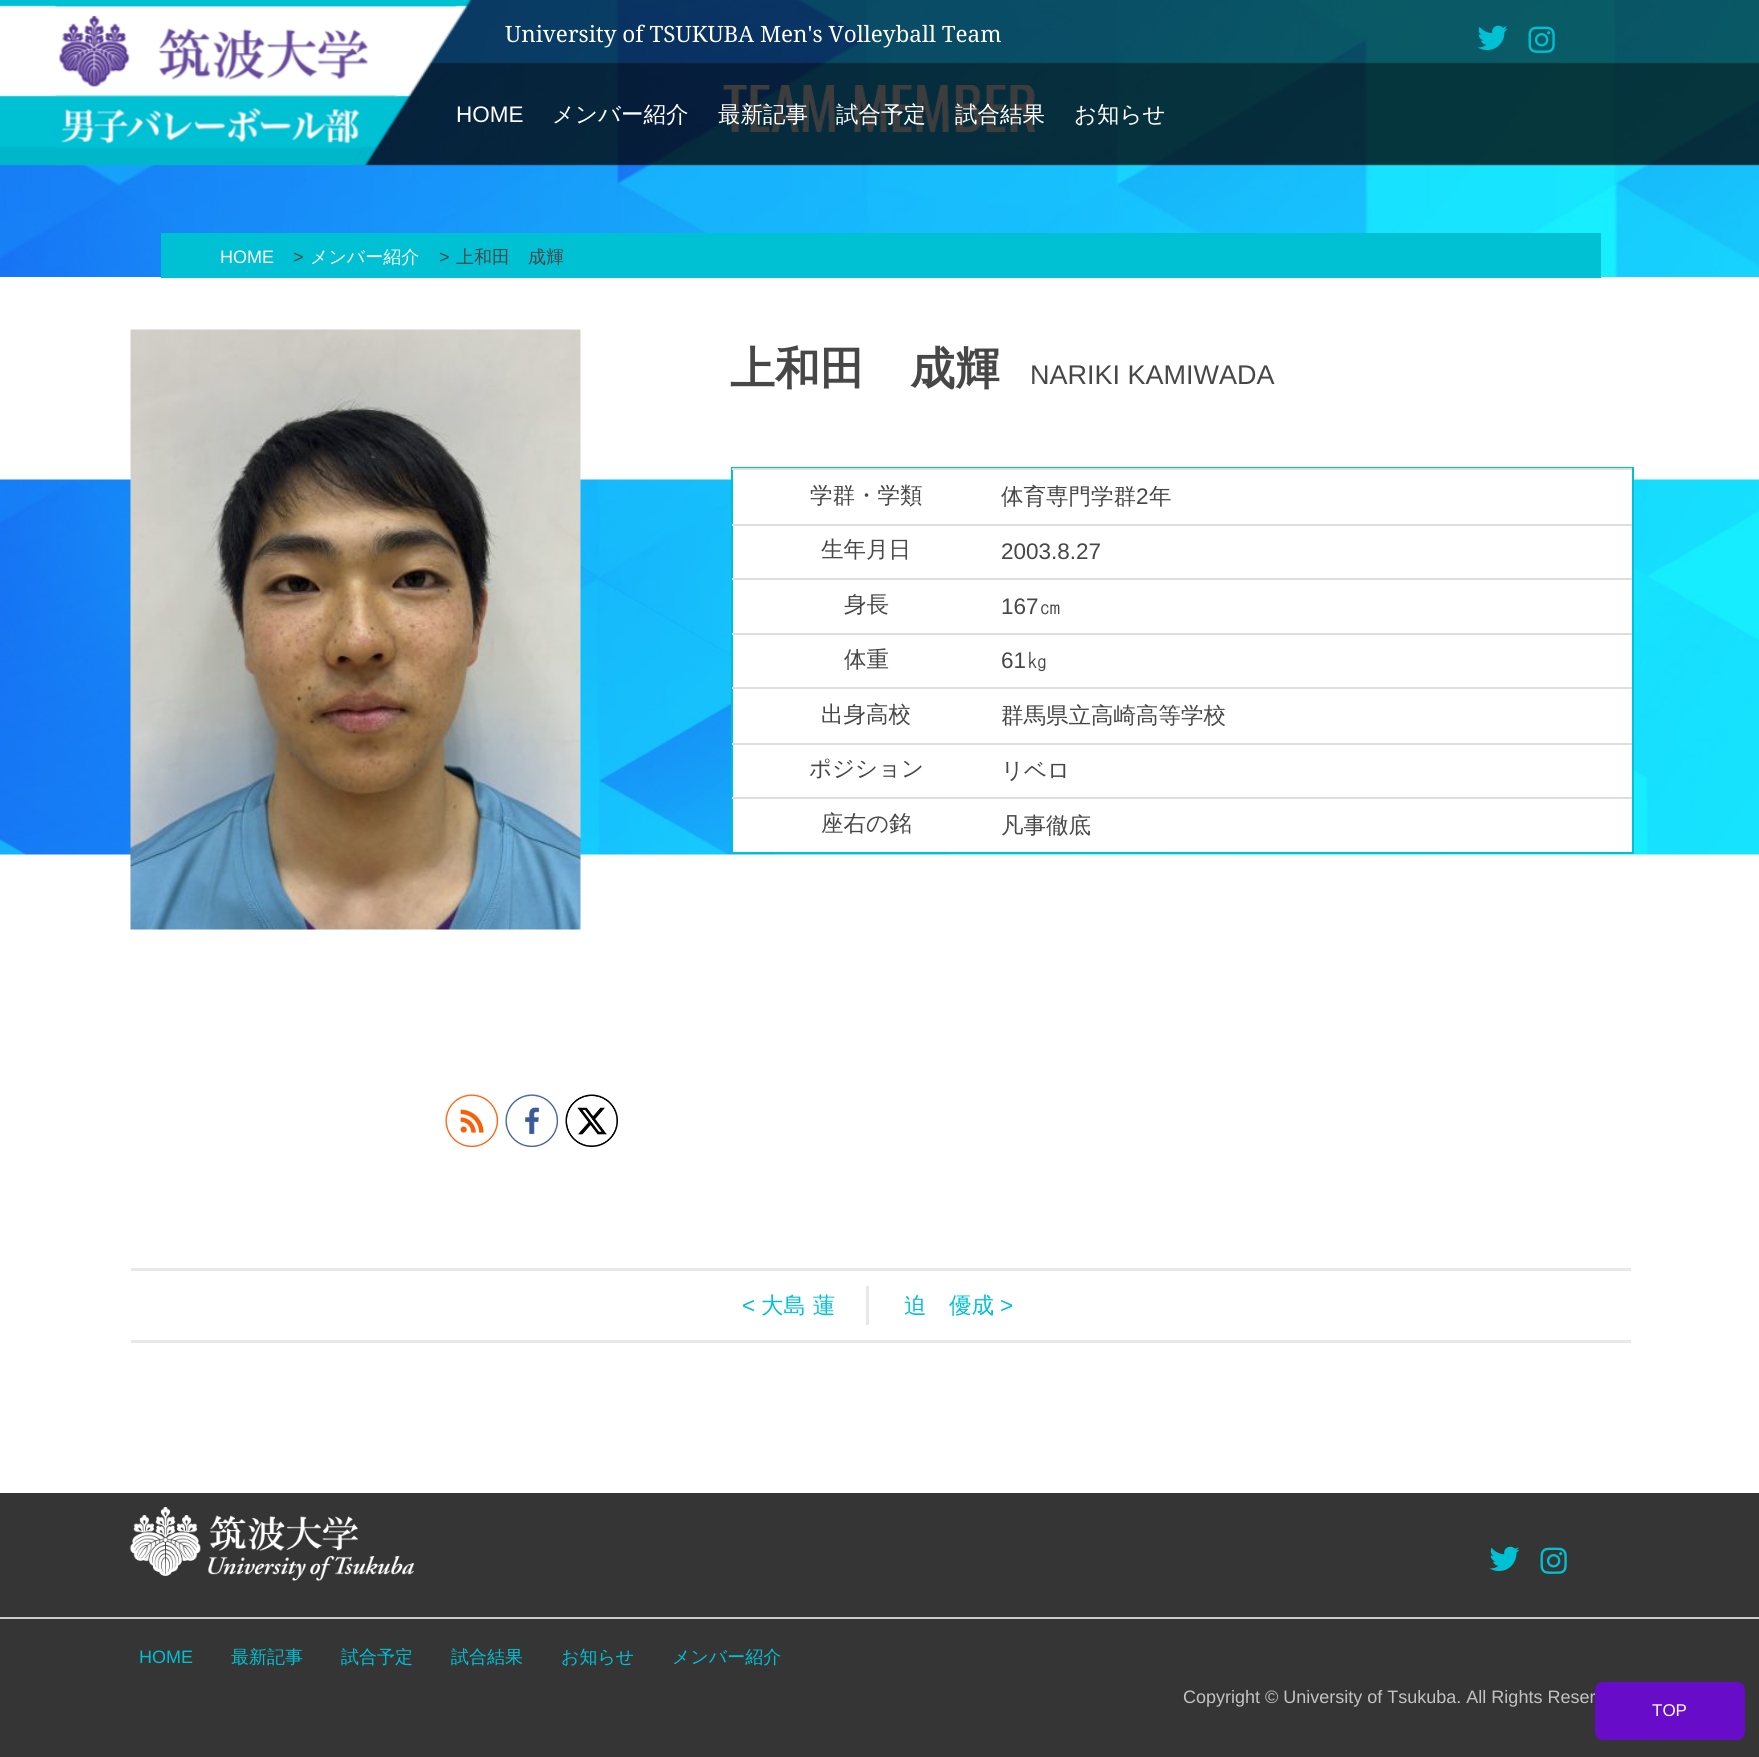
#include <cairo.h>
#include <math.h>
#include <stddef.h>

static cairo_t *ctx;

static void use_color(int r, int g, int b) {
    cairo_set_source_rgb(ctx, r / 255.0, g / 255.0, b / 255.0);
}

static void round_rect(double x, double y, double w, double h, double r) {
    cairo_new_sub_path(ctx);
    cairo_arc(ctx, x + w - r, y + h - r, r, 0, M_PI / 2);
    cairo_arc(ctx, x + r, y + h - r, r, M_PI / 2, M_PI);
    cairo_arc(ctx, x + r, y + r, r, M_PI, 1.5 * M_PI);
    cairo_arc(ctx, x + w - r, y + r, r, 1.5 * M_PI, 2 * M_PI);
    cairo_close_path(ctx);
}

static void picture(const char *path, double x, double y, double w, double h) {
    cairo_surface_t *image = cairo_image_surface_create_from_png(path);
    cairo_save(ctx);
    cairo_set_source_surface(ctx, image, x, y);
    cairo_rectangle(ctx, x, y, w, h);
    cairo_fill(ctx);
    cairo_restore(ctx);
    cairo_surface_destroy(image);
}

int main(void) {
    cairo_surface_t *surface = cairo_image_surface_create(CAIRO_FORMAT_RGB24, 1759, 1757);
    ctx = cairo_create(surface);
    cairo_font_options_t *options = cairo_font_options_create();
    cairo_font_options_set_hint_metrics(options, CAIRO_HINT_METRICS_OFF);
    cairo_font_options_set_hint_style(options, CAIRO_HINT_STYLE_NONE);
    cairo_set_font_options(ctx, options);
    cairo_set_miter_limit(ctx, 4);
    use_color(255, 255, 255);
    cairo_paint(ctx);
    picture("img5.png", 0, 0, 1759, 277);
    picture("img6.png", 723, 85, 313, 48);
    picture("img1.png", 0, 0, 1759, 166);
    picture("img2.png", 55, 5, 402, 160);
    cairo_select_font_face(ctx, "Noto Serif", CAIRO_FONT_SLANT_NORMAL, CAIRO_FONT_WEIGHT_NORMAL);
    cairo_set_font_size(ctx, 22.5);
    use_color(255, 255, 255);
    cairo_move_to(ctx, 505, 42);
    cairo_show_text(ctx, "University of TSUKUBA Men's Volleyball Team");
    picture("img3.png", 1477, 25, 31, 25);
    picture("img4.png", 1528, 26, 27, 27);
    cairo_select_font_face(ctx, "Liberation Sans", CAIRO_FONT_SLANT_NORMAL, CAIRO_FONT_WEIGHT_NORMAL);
    cairo_move_to(ctx, 456, 122);
    cairo_show_text(ctx, "HOME");
    cairo_select_font_face(ctx, "WenQuanYi Zen Hei Medium", CAIRO_FONT_SLANT_NORMAL, CAIRO_FONT_WEIGHT_NORMAL);
    cairo_move_to(ctx, 552, 122);
    cairo_show_text(ctx, "メンバー紹介");
    cairo_move_to(ctx, 718, 122);
    cairo_show_text(ctx, "最新記事");
    cairo_move_to(ctx, 836, 122);
    cairo_show_text(ctx, "試合予定");
    cairo_move_to(ctx, 955, 122);
    cairo_show_text(ctx, "試合結果");
    cairo_move_to(ctx, 1074, 122);
    cairo_show_text(ctx, "お知らせ");
    use_color(0, 192, 212);
    cairo_rectangle(ctx, 161, 233, 1440, 45);
    cairo_fill(ctx);
    cairo_select_font_face(ctx, "Liberation Sans", CAIRO_FONT_SLANT_NORMAL, CAIRO_FONT_WEIGHT_NORMAL);
    cairo_set_font_size(ctx, 18);
    use_color(255, 255, 255);
    cairo_move_to(ctx, 220, 263);
    cairo_show_text(ctx, "HOME");
    use_color(71, 71, 71);
    cairo_move_to(ctx, 293, 263);
    cairo_show_text(ctx, ">");
    cairo_select_font_face(ctx, "WenQuanYi Zen Hei Medium", CAIRO_FONT_SLANT_NORMAL, CAIRO_FONT_WEIGHT_NORMAL);
    use_color(255, 255, 255);
    cairo_move_to(ctx, 310, 263);
    cairo_show_text(ctx, "メンバー紹介");
    cairo_select_font_face(ctx, "Liberation Sans", CAIRO_FONT_SLANT_NORMAL, CAIRO_FONT_WEIGHT_NORMAL);
    use_color(71, 71, 71);
    cairo_move_to(ctx, 439, 263);
    cairo_show_text(ctx, ">");
    cairo_select_font_face(ctx, "WenQuanYi Zen Hei Medium", CAIRO_FONT_SLANT_NORMAL, CAIRO_FONT_WEIGHT_NORMAL);
    cairo_move_to(ctx, 456, 263);
    cairo_show_text(ctx, "上和田　成輝");
    picture("img7.png", 0, 479, 1759, 376);
    picture("img8.png", 130, 329, 451, 601);
    cairo_select_font_face(ctx, "WenQuanYi Zen Hei", CAIRO_FONT_SLANT_NORMAL, CAIRO_FONT_WEIGHT_BOLD);
    cairo_set_font_size(ctx, 45);
    cairo_move_to(ctx, 730, 384);
    cairo_show_text(ctx, "上和田　成輝");
    cairo_select_font_face(ctx, "Liberation Sans", CAIRO_FONT_SLANT_NORMAL, CAIRO_FONT_WEIGHT_NORMAL);
    cairo_set_font_size(ctx, 27);
    cairo_move_to(ctx, 1030, 384);
    cairo_show_text(ctx, "NARIKI KAMIWADA");
    use_color(255, 255, 255);
    cairo_rectangle(ctx, 733, 479, 899, 373);
    cairo_fill(ctx);
    cairo_rectangle(ctx, 732, 468, 901, 385);
    use_color(0, 192, 212);
    cairo_stroke(ctx);
    cairo_select_font_face(ctx, "WenQuanYi Zen Hei Medium", CAIRO_FONT_SLANT_NORMAL, CAIRO_FONT_WEIGHT_NORMAL);
    cairo_set_font_size(ctx, 22.5);
    use_color(71, 71, 71);
    cairo_move_to(ctx, 810, 503);
    cairo_show_text(ctx, "学群・学類");
    use_color(222, 222, 222);
    cairo_rectangle(ctx, 732, 468, 900, 2);
    cairo_fill(ctx);
    use_color(71, 71, 71);
    cairo_move_to(ctx, 1001, 504);
    cairo_show_text(ctx, "体育専門学群");
    cairo_select_font_face(ctx, "Liberation Sans", CAIRO_FONT_SLANT_NORMAL, CAIRO_FONT_WEIGHT_NORMAL);
    cairo_move_to(ctx, 1136, 504);
    cairo_show_text(ctx, "2");
    cairo_select_font_face(ctx, "WenQuanYi Zen Hei Medium", CAIRO_FONT_SLANT_NORMAL, CAIRO_FONT_WEIGHT_NORMAL);
    cairo_move_to(ctx, 1149, 504);
    cairo_show_text(ctx, "年");
    cairo_move_to(ctx, 821, 557);
    cairo_show_text(ctx, "生年月日");
    use_color(222, 222, 222);
    cairo_rectangle(ctx, 732, 524, 900, 2);
    cairo_fill(ctx);
    cairo_select_font_face(ctx, "Liberation Sans", CAIRO_FONT_SLANT_NORMAL, CAIRO_FONT_WEIGHT_NORMAL);
    use_color(71, 71, 71);
    cairo_move_to(ctx, 1001, 559);
    cairo_show_text(ctx, "2003.8.27");
    cairo_select_font_face(ctx, "WenQuanYi Zen Hei Medium", CAIRO_FONT_SLANT_NORMAL, CAIRO_FONT_WEIGHT_NORMAL);
    cairo_move_to(ctx, 844, 612);
    cairo_show_text(ctx, "身長");
    use_color(222, 222, 222);
    cairo_rectangle(ctx, 732, 578, 900, 2);
    cairo_fill(ctx);
    cairo_select_font_face(ctx, "Liberation Sans", CAIRO_FONT_SLANT_NORMAL, CAIRO_FONT_WEIGHT_NORMAL);
    use_color(71, 71, 71);
    cairo_move_to(ctx, 1001, 614);
    cairo_show_text(ctx, "167");
    cairo_select_font_face(ctx, "WenQuanYi Zen Hei Medium", CAIRO_FONT_SLANT_NORMAL, CAIRO_FONT_WEIGHT_NORMAL);
    cairo_move_to(ctx, 1039, 614);
    cairo_show_text(ctx, "㎝");
    cairo_move_to(ctx, 844, 667);
    cairo_show_text(ctx, "体重");
    use_color(222, 222, 222);
    cairo_rectangle(ctx, 732, 633, 900, 2);
    cairo_fill(ctx);
    cairo_select_font_face(ctx, "Liberation Sans", CAIRO_FONT_SLANT_NORMAL, CAIRO_FONT_WEIGHT_NORMAL);
    use_color(71, 71, 71);
    cairo_move_to(ctx, 1001, 668);
    cairo_show_text(ctx, "61");
    cairo_select_font_face(ctx, "WenQuanYi Zen Hei Medium", CAIRO_FONT_SLANT_NORMAL, CAIRO_FONT_WEIGHT_NORMAL);
    cairo_move_to(ctx, 1026, 668);
    cairo_show_text(ctx, "㎏");
    cairo_move_to(ctx, 821, 722);
    cairo_show_text(ctx, "出身高校");
    use_color(222, 222, 222);
    cairo_rectangle(ctx, 732, 687, 900, 2);
    cairo_fill(ctx);
    use_color(71, 71, 71);
    cairo_move_to(ctx, 1001, 723);
    cairo_show_text(ctx, "群馬県立高崎高等学校");
    cairo_move_to(ctx, 809, 776);
    cairo_show_text(ctx, "ポジション");
    use_color(222, 222, 222);
    cairo_rectangle(ctx, 732, 743, 900, 2);
    cairo_fill(ctx);
    use_color(71, 71, 71);
    cairo_move_to(ctx, 1001, 778);
    cairo_show_text(ctx, "リベロ");
    cairo_move_to(ctx, 821, 831);
    cairo_show_text(ctx, "座右の銘");
    use_color(222, 222, 222);
    cairo_rectangle(ctx, 732, 797, 900, 2);
    cairo_fill(ctx);
    use_color(71, 71, 71);
    cairo_move_to(ctx, 1001, 833);
    cairo_show_text(ctx, "凡事徹底");
    picture("img9.png", 445, 1094, 53, 53);
    picture("img10.png", 505, 1094, 53, 53);
    picture("img11.png", 565, 1094, 53, 53);
    use_color(232, 232, 232);
    cairo_rectangle(ctx, 131, 1268, 1500, 3);
    cairo_fill(ctx);
    cairo_rectangle(ctx, 131, 1340, 1500, 3);
    cairo_fill(ctx);
    cairo_rectangle(ctx, 866, 1286, 3, 39);
    cairo_fill(ctx);
    cairo_select_font_face(ctx, "Liberation Sans", CAIRO_FONT_SLANT_NORMAL, CAIRO_FONT_WEIGHT_NORMAL);
    use_color(0, 192, 212);
    cairo_move_to(ctx, 742, 1313);
    cairo_show_text(ctx, "<");
    cairo_select_font_face(ctx, "WenQuanYi Zen Hei Medium", CAIRO_FONT_SLANT_NORMAL, CAIRO_FONT_WEIGHT_NORMAL);
    cairo_move_to(ctx, 761, 1313);
    cairo_show_text(ctx, "大島 蓮");
    cairo_move_to(ctx, 904, 1313);
    cairo_show_text(ctx, "迫　優成");
    cairo_select_font_face(ctx, "Liberation Sans", CAIRO_FONT_SLANT_NORMAL, CAIRO_FONT_WEIGHT_NORMAL);
    cairo_move_to(ctx, 1000, 1313);
    cairo_show_text(ctx, ">");
    use_color(53, 53, 53);
    cairo_rectangle(ctx, 0, 1493, 1759, 124);
    cairo_fill(ctx);
    picture("img12.png", 130, 1507, 284, 74);
    picture("img13.png", 1489, 1546, 31, 26);
    picture("img14.png", 1540, 1547, 27, 27);
    cairo_rectangle(ctx, 0, 1619, 1759, 138);
    cairo_fill(ctx);
    use_color(204, 204, 204);
    cairo_rectangle(ctx, 0, 1617, 1759, 2);
    cairo_fill(ctx);
    cairo_set_font_size(ctx, 18);
    use_color(0, 192, 212);
    cairo_move_to(ctx, 139, 1663);
    cairo_show_text(ctx, "HOME");
    cairo_select_font_face(ctx, "WenQuanYi Zen Hei Medium", CAIRO_FONT_SLANT_NORMAL, CAIRO_FONT_WEIGHT_NORMAL);
    cairo_move_to(ctx, 231, 1663);
    cairo_show_text(ctx, "最新記事");
    cairo_move_to(ctx, 341, 1663);
    cairo_show_text(ctx, "試合予定");
    cairo_move_to(ctx, 451, 1663);
    cairo_show_text(ctx, "試合結果");
    cairo_move_to(ctx, 561, 1663);
    cairo_show_text(ctx, "お知らせ");
    cairo_move_to(ctx, 672, 1663);
    cairo_show_text(ctx, "メンバー紹介");
    cairo_select_font_face(ctx, "Liberation Sans", CAIRO_FONT_SLANT_NORMAL, CAIRO_FONT_WEIGHT_NORMAL);
    use_color(195, 195, 195);
    cairo_move_to(ctx, 1183, 1703);
    cairo_show_text(ctx, "Copyright © University of Tsukuba. All Rights Reser");
    use_color(103, 12, 200);
    round_rect(1595, 1682, 150, 58, 8);
    cairo_fill(ctx);
    cairo_set_font_size(ctx, 17);
    use_color(255, 255, 255);
    cairo_move_to(ctx, 1652, 1716);
    cairo_show_text(ctx, "TOP");
    cairo_surface_write_to_png(surface, "result.png");
    cairo_font_options_destroy(options);
    cairo_destroy(ctx);
    cairo_surface_destroy(surface);
    return 0;
}
